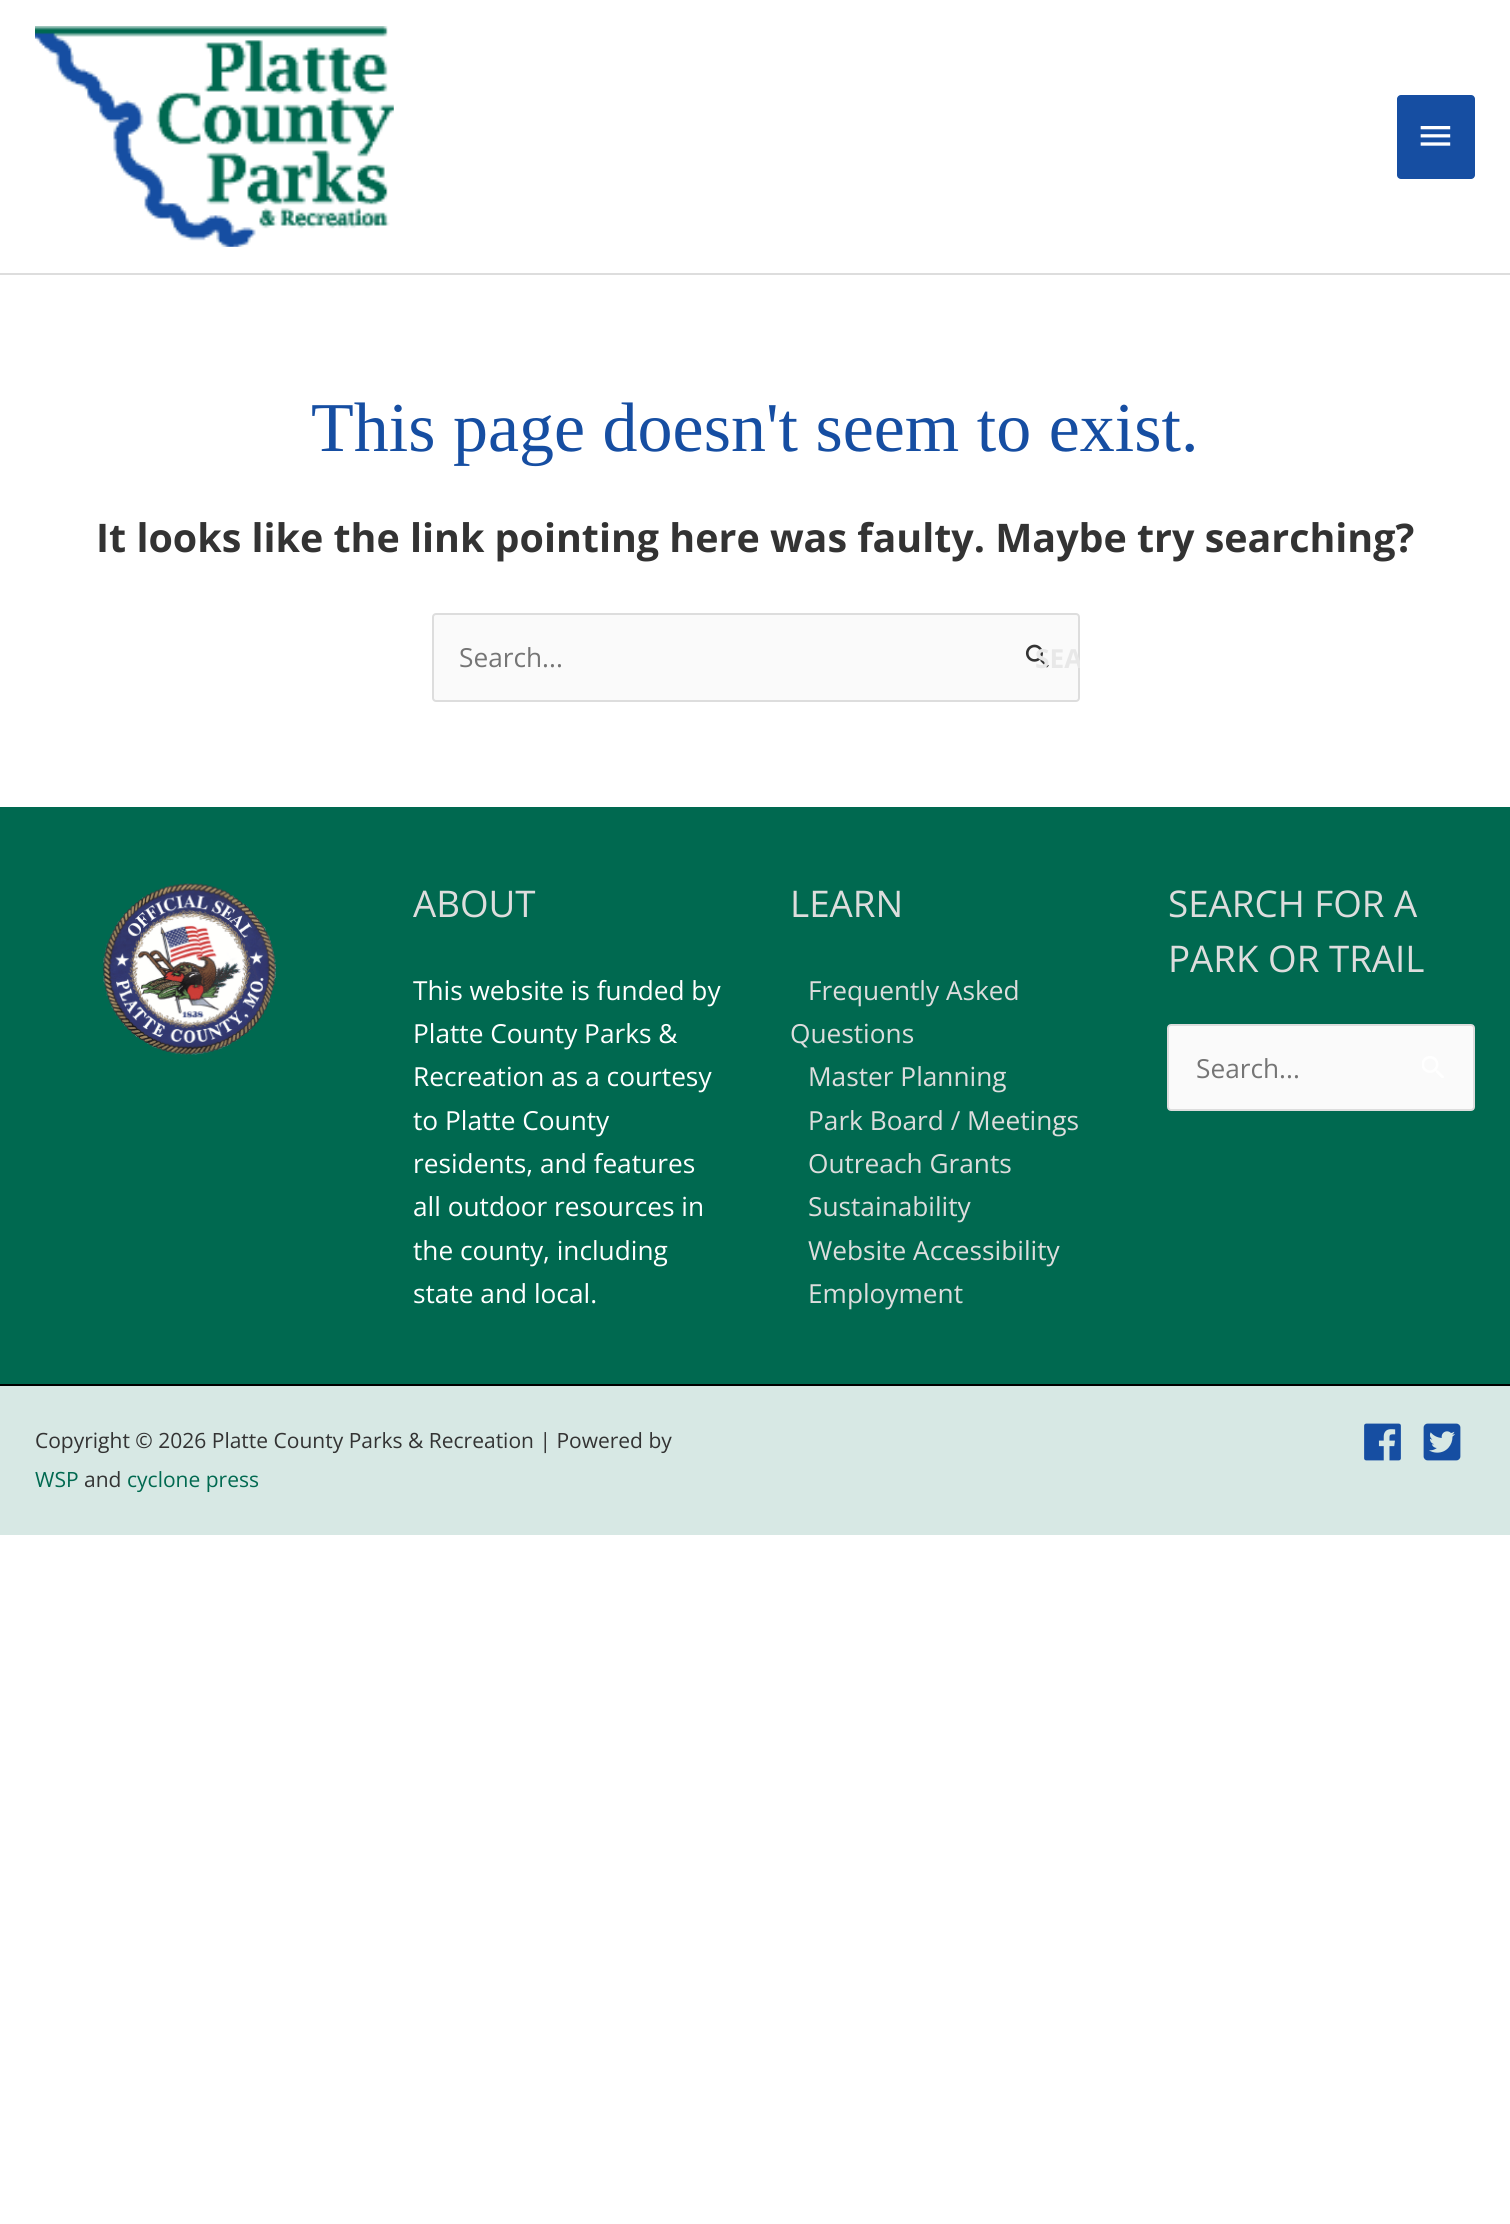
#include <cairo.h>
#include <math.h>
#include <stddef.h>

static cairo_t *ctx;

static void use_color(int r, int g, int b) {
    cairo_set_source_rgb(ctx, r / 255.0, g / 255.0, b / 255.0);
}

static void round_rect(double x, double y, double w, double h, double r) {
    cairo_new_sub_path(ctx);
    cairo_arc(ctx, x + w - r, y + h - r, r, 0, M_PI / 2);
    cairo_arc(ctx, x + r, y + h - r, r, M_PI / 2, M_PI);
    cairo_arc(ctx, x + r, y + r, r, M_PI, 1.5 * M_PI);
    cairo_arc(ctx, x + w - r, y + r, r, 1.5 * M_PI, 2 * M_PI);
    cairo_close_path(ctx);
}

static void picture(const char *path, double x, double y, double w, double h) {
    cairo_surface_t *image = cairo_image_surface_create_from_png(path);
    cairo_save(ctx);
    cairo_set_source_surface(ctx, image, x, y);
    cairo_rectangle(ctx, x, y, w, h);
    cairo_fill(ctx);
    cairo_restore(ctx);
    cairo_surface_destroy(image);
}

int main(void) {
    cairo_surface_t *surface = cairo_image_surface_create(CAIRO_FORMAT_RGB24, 1510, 2224);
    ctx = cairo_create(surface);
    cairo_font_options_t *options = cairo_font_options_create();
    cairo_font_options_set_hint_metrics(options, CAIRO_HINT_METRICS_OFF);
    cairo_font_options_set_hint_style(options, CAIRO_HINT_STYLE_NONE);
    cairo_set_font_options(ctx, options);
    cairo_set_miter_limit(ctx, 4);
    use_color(255, 255, 255);
    cairo_paint(ctx);
    use_color(221, 221, 221);
    cairo_rectangle(ctx, 0, 273, 1510, 2);
    cairo_fill(ctx);
    picture("img1.png", 35, 26, 359, 221);
    use_color(22, 78, 162);
    round_rect(1397, 95, 78, 84, 4);
    cairo_fill(ctx);
    picture("img2.png", 1420, 126, 31, 20);
    cairo_select_font_face(ctx, "Liberation Serif", CAIRO_FONT_SLANT_NORMAL, CAIRO_FONT_WEIGHT_NORMAL);
    cairo_set_font_size(ctx, 70);
    cairo_move_to(ctx, 311, 451);
    cairo_show_text(ctx, "This page doesn't seem to exist.");
    cairo_select_font_face(ctx, "Open Sans", CAIRO_FONT_SLANT_NORMAL, CAIRO_FONT_WEIGHT_BOLD);
    cairo_set_font_size(ctx, 39.4);
    use_color(51, 51, 51);
    cairo_move_to(ctx, 96, 552);
    cairo_show_text(ctx, "It looks like the link pointing here was faulty. Maybe try searching?");
    use_color(250, 250, 250);
    round_rect(433, 614, 646, 87, 3);
    cairo_fill_preserve(ctx);
    use_color(221, 221, 221);
    cairo_stroke(ctx);
    cairo_select_font_face(ctx, "Open Sans", CAIRO_FONT_SLANT_NORMAL, CAIRO_FONT_WEIGHT_NORMAL);
    cairo_set_font_size(ctx, 26.25);
    use_color(117, 117, 117);
    cairo_move_to(ctx, 459, 667);
    cairo_show_text(ctx, "Search...");
    picture("img3.png", 1025, 644, 24, 24);
    cairo_save(ctx);
    round_rect(1001, 613, 79, 94, 4);
    cairo_clip(ctx);
    cairo_select_font_face(ctx, "Open Sans", CAIRO_FONT_SLANT_NORMAL, CAIRO_FONT_WEIGHT_BOLD);
    use_color(232, 232, 232);
    cairo_move_to(ctx, 1035, 668);
    cairo_show_text(ctx, "SEA");
    cairo_restore(ctx);
    use_color(0, 105, 80);
    cairo_rectangle(ctx, 0, 807, 1510, 577);
    cairo_fill(ctx);
    picture("img4.png", 103, 883, 173, 172);
    cairo_set_font_size(ctx, 36.75);
    use_color(221, 221, 221);
    cairo_move_to(ctx, 413, 917);
    cairo_show_text(ctx, "ABOUT");
    cairo_set_font_size(ctx, 26.25);
    use_color(255, 255, 255);
    cairo_move_to(ctx, 413, 1000);
    cairo_show_text(ctx, "This website is funded by");
    cairo_move_to(ctx, 413, 1043);
    cairo_show_text(ctx, "Platte County Parks &");
    cairo_move_to(ctx, 413, 1086);
    cairo_show_text(ctx, "Recreation as a courtesy");
    cairo_move_to(ctx, 413, 1130);
    cairo_show_text(ctx, "to Platte County");
    cairo_move_to(ctx, 413, 1173);
    cairo_show_text(ctx, "residents, and features");
    cairo_move_to(ctx, 413, 1216);
    cairo_show_text(ctx, "all outdoor resources in");
    cairo_move_to(ctx, 413, 1260);
    cairo_show_text(ctx, "the county, including");
    cairo_move_to(ctx, 413, 1303);
    cairo_show_text(ctx, "state and local.");
    cairo_set_font_size(ctx, 36.75);
    use_color(221, 221, 221);
    cairo_move_to(ctx, 790, 917);
    cairo_show_text(ctx, "LEARN");
    cairo_set_font_size(ctx, 26.25);
    cairo_move_to(ctx, 808, 1000);
    cairo_show_text(ctx, "Frequently Asked");
    cairo_move_to(ctx, 790, 1043);
    cairo_show_text(ctx, "Questions");
    cairo_move_to(ctx, 808, 1086);
    cairo_show_text(ctx, "Master Planning");
    cairo_move_to(ctx, 808, 1130);
    cairo_show_text(ctx, "Park Board / Meetings");
    cairo_move_to(ctx, 808, 1173);
    cairo_show_text(ctx, "Outreach Grants");
    cairo_move_to(ctx, 808, 1216);
    cairo_show_text(ctx, "Sustainability");
    cairo_move_to(ctx, 808, 1260);
    cairo_show_text(ctx, "Website Accessibility");
    cairo_move_to(ctx, 808, 1303);
    cairo_show_text(ctx, "Employment");
    cairo_set_font_size(ctx, 36.75);
    cairo_move_to(ctx, 1168, 917);
    cairo_show_text(ctx, "SEARCH FOR A");
    cairo_move_to(ctx, 1168, 972);
    cairo_show_text(ctx, "PARK OR TRAIL");
    use_color(250, 250, 250);
    round_rect(1168, 1025, 306, 85, 3);
    cairo_fill_preserve(ctx);
    use_color(221, 221, 221);
    cairo_stroke(ctx);
    cairo_set_font_size(ctx, 26.25);
    use_color(117, 117, 117);
    cairo_move_to(ctx, 1196, 1078);
    cairo_show_text(ctx, "Search...");
    picture("img5.png", 1422, 1056, 22, 22);
    use_color(0, 0, 0);
    cairo_rectangle(ctx, 0, 1384, 1510, 2);
    cairo_fill(ctx);
    use_color(215, 232, 228);
    cairo_rectangle(ctx, 0, 1386, 1510, 149);
    cairo_fill(ctx);
    cairo_set_font_size(ctx, 21);
    use_color(51, 51, 51);
    cairo_move_to(ctx, 35, 1448);
    cairo_show_text(ctx, "Copyright © 2026 Platte County Parks & Recreation | Powered by");
    use_color(0, 105, 80);
    cairo_move_to(ctx, 35, 1487);
    cairo_show_text(ctx, "WSP");
    use_color(51, 51, 51);
    cairo_move_to(ctx, 84, 1487);
    cairo_show_text(ctx, "and");
    use_color(0, 105, 80);
    cairo_move_to(ctx, 127, 1487);
    cairo_show_text(ctx, "cyclone press");
    picture("img6.png", 1364, 1423, 37, 38);
    picture("img7.png", 1423, 1423, 38, 38);
    cairo_surface_write_to_png(surface, "result.png");
    cairo_font_options_destroy(options);
    cairo_destroy(ctx);
    cairo_surface_destroy(surface);
    return 0;
}
